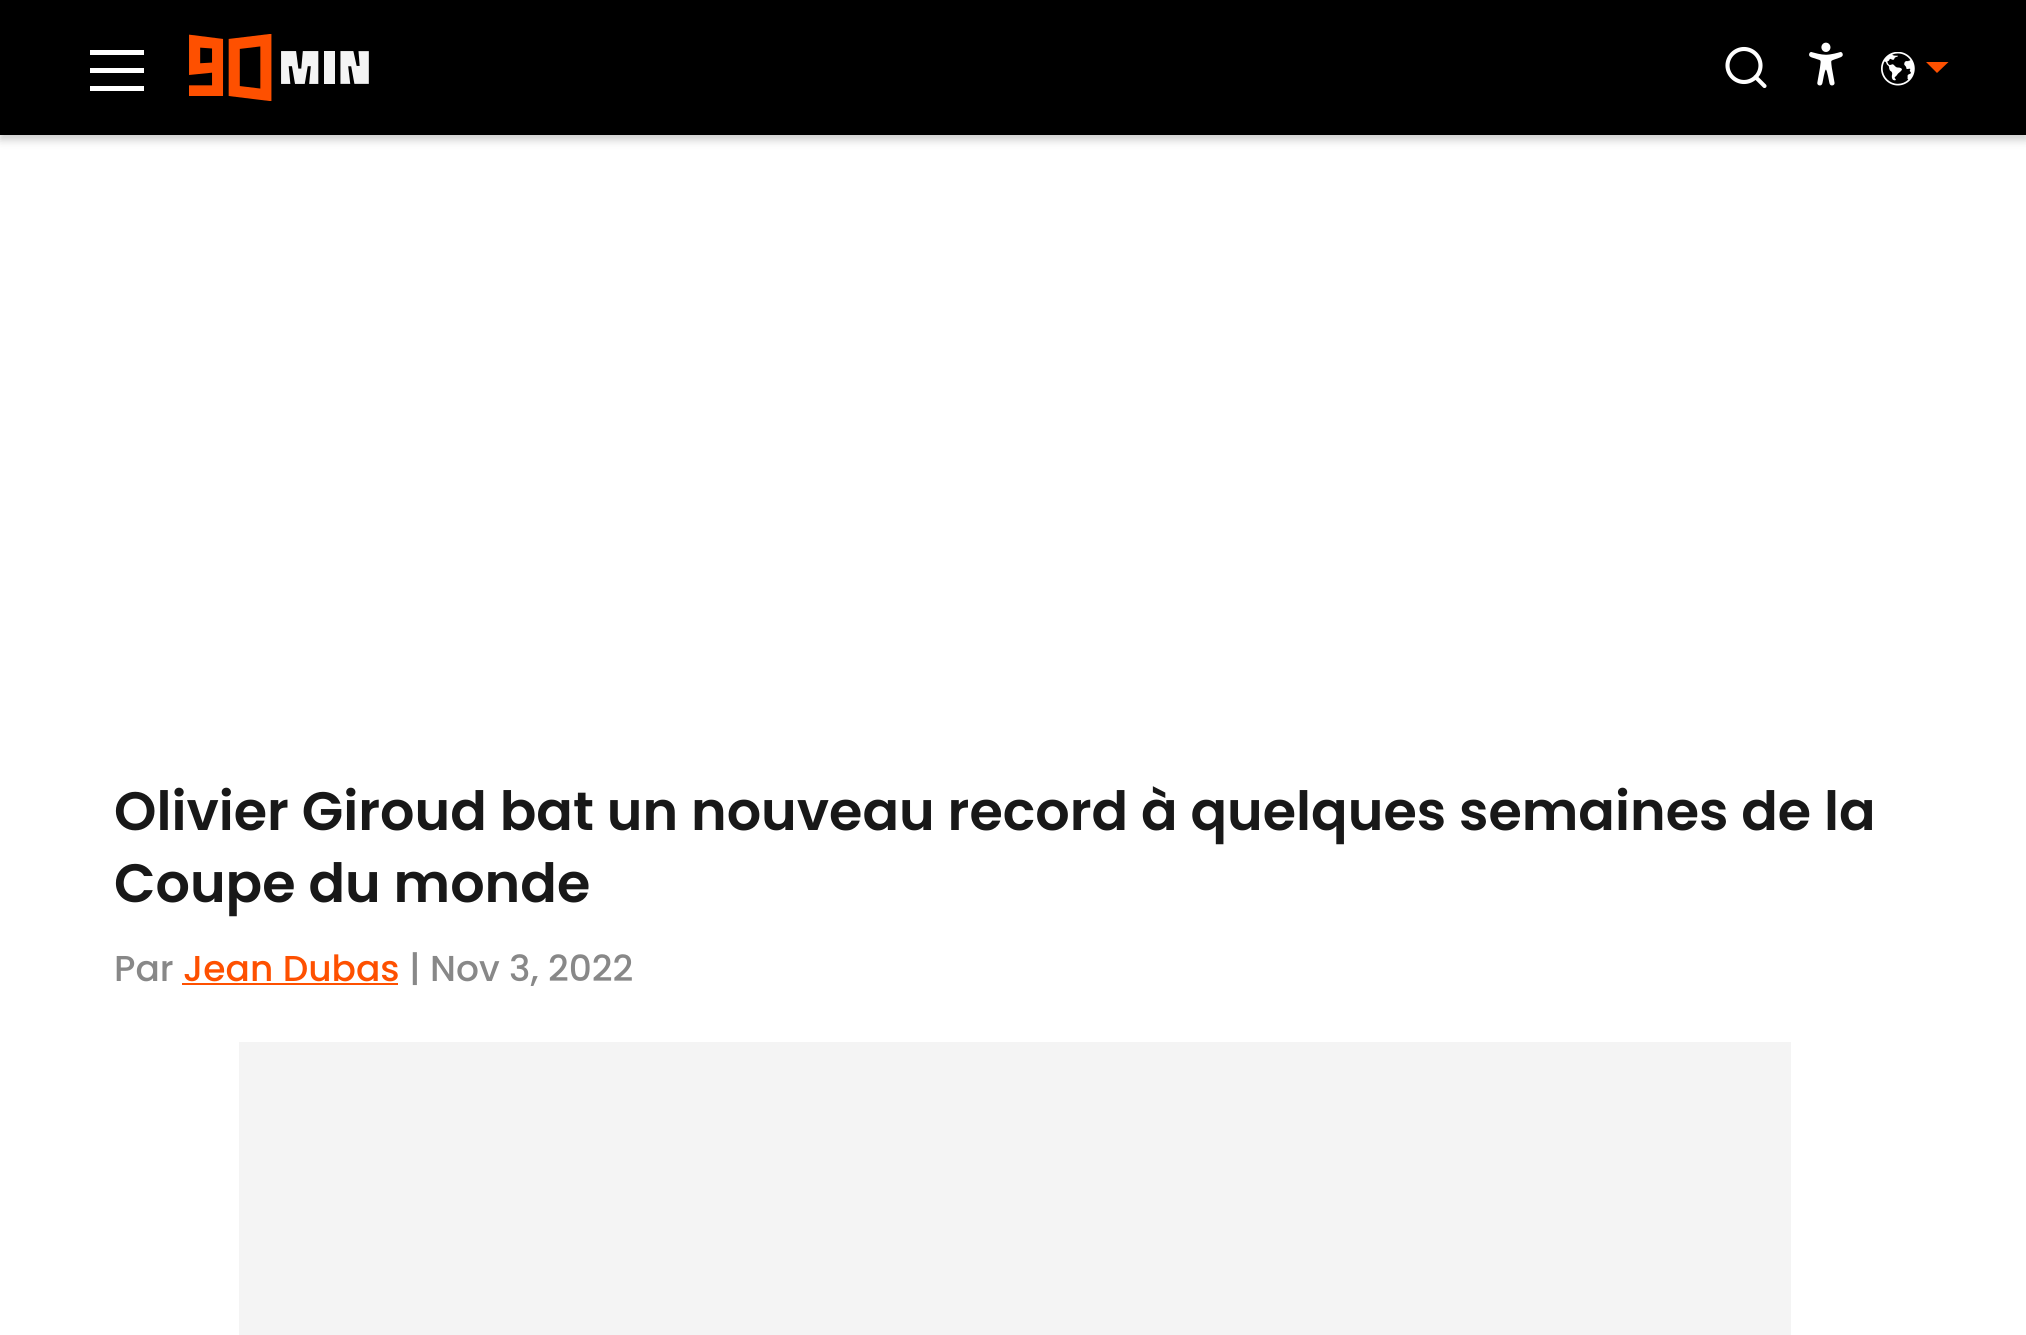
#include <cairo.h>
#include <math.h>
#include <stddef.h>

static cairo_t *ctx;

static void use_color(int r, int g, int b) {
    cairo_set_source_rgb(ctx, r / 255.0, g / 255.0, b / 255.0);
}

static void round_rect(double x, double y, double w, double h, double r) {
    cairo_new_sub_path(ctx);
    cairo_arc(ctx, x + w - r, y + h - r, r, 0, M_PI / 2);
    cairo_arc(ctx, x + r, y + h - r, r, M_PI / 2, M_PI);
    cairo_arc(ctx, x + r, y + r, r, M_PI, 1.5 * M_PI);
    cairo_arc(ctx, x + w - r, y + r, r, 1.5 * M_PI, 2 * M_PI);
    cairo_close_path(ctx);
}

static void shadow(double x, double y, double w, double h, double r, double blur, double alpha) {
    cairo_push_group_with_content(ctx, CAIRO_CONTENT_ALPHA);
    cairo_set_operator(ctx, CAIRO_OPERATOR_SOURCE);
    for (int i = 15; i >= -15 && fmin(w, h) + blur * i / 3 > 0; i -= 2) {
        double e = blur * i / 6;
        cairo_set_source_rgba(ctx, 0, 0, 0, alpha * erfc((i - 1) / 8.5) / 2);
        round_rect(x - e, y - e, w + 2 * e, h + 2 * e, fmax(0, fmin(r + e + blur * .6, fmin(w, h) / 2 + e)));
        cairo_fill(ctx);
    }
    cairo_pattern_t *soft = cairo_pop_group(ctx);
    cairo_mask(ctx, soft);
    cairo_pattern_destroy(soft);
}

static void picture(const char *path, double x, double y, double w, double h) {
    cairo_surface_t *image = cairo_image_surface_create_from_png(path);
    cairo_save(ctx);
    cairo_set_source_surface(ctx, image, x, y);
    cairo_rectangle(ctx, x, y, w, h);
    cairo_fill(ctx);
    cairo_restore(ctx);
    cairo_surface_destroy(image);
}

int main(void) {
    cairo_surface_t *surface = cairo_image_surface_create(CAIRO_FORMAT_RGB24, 2026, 1335);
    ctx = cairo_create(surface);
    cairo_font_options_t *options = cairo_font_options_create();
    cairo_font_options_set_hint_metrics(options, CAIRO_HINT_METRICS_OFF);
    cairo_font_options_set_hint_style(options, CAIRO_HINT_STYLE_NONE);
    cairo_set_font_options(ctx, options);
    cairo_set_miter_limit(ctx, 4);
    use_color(255, 255, 255);
    cairo_paint(ctx);
    use_color(0, 0, 0);
    shadow(0, 5, 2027, 135, 0, 4.5, 0.2);
    use_color(0, 0, 0);
    cairo_rectangle(ctx, 0, 0, 2026, 135);
    cairo_fill(ctx);
    use_color(255, 255, 255);
    cairo_rectangle(ctx, 90, 50, 54, 5);
    cairo_fill(ctx);
    cairo_rectangle(ctx, 90, 68, 54, 5);
    cairo_fill(ctx);
    cairo_rectangle(ctx, 90, 86, 54, 5);
    cairo_fill(ctx);
    picture("img1.png", 189, 34, 180, 67);
    cairo_new_path(ctx);
    cairo_move_to(ctx, 1744, 82);
    cairo_curve_to(ctx, 1753, 82, 1760.5, 74.5, 1760.5, 65.5);
    cairo_curve_to(ctx, 1760.5, 56.5, 1753, 49, 1744, 49);
    cairo_curve_to(ctx, 1735, 49, 1727.5, 56.5, 1727.5, 65.5);
    cairo_curve_to(ctx, 1727.5, 74.5, 1735, 82, 1744, 82);
    cairo_close_path(ctx);
    cairo_move_to(ctx, 1764.5, 86);
    cairo_line_to(ctx, 1755.5, 77);
    cairo_set_line_width(ctx, 4.1);
    cairo_set_line_cap(ctx, CAIRO_LINE_CAP_ROUND);
    cairo_set_line_join(ctx, CAIRO_LINE_JOIN_ROUND);
    cairo_stroke(ctx);
    picture("img2.png", 1809, 42, 34, 44);
    picture("img3.png", 1881, 52, 34, 34);
    use_color(254, 80, 0);
    cairo_set_fill_rule(ctx, CAIRO_FILL_RULE_EVEN_ODD);
    cairo_new_path(ctx);
    cairo_move_to(ctx, 1926, 62);
    cairo_line_to(ctx, 1937, 73);
    cairo_line_to(ctx, 1948.5, 62);
    cairo_close_path(ctx);
    cairo_fill(ctx);
    cairo_select_font_face(ctx, "Poppins SemiBold", CAIRO_FONT_SLANT_NORMAL, CAIRO_FONT_WEIGHT_NORMAL);
    cairo_set_font_size(ctx, 54);
    use_color(24, 24, 24);
    cairo_move_to(ctx, 114, 830);
    cairo_show_text(ctx, "Olivier Giroud bat un nouveau record à quelques semaines de la");
    cairo_move_to(ctx, 114, 902);
    cairo_show_text(ctx, "Coupe du monde");
    cairo_select_font_face(ctx, "Poppins Medium", CAIRO_FONT_SLANT_NORMAL, CAIRO_FONT_WEIGHT_NORMAL);
    cairo_set_font_size(ctx, 36);
    use_color(136, 136, 136);
    cairo_move_to(ctx, 114, 981);
    cairo_show_text(ctx, "Par");
    use_color(254, 80, 0);
    cairo_move_to(ctx, 183, 981);
    cairo_show_text(ctx, "Jean Dubas");
    cairo_rectangle(ctx, 182, 983, 216, 2);
    cairo_fill(ctx);
    use_color(136, 136, 136);
    cairo_move_to(ctx, 409, 981);
    cairo_show_text(ctx, "| Nov 3, 2022");
    use_color(244, 244, 244);
    cairo_rectangle(ctx, 239, 1042, 1552, 293);
    cairo_fill(ctx);
    cairo_surface_write_to_png(surface, "result.png");
    cairo_font_options_destroy(options);
    cairo_destroy(ctx);
    cairo_surface_destroy(surface);
    return 0;
}
